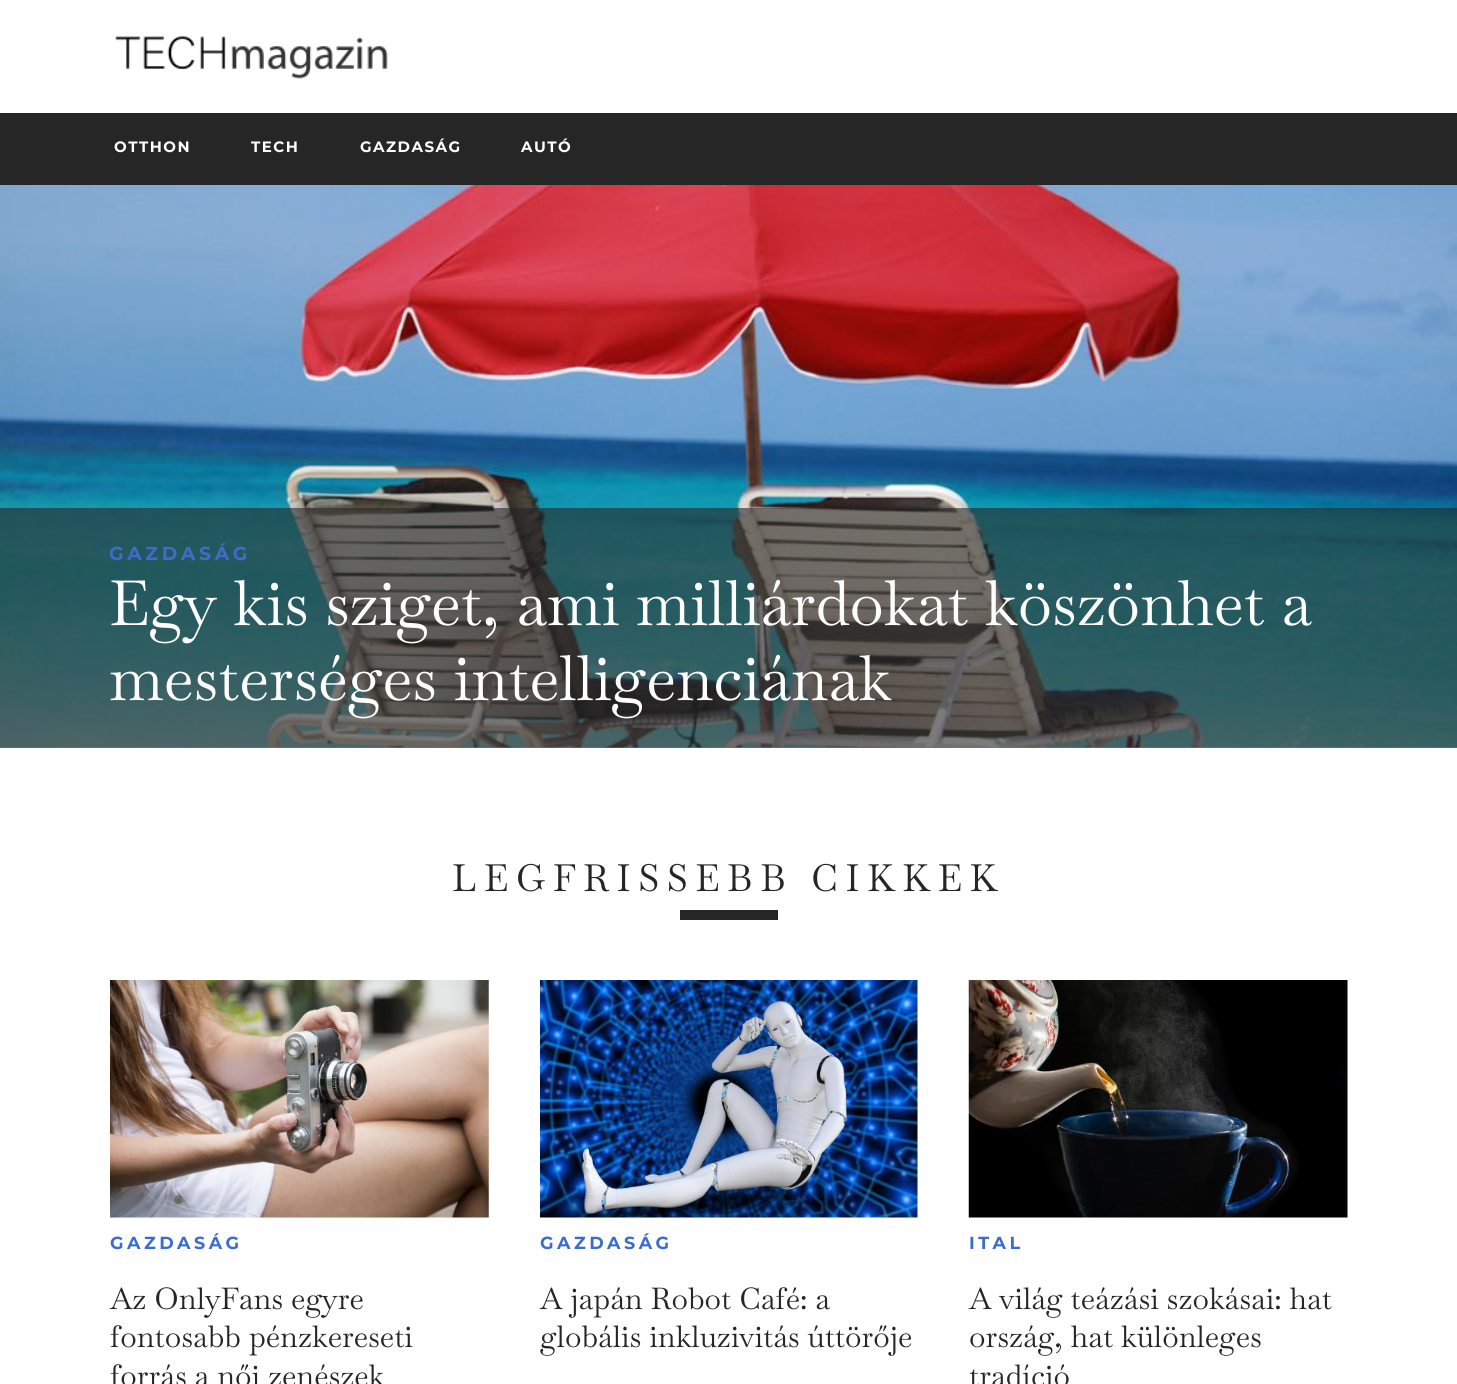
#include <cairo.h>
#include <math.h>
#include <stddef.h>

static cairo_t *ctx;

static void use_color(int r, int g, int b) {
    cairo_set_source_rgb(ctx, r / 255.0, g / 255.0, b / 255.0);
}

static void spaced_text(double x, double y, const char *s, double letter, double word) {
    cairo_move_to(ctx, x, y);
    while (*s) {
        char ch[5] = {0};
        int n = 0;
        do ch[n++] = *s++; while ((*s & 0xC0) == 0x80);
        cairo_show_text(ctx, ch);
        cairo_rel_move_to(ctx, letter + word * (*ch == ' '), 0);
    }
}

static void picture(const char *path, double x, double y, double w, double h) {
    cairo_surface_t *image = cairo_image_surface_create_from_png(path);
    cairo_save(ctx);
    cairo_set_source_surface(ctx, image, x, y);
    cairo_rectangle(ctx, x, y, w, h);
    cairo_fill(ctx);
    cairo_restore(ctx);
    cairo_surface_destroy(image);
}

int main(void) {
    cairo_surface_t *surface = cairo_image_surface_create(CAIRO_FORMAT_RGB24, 1457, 1384);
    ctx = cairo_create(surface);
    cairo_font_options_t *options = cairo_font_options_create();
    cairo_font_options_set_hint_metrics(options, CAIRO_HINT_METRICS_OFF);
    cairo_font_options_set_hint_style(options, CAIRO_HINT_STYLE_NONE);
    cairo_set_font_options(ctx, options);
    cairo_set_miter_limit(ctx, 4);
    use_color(255, 255, 255);
    cairo_paint(ctx);
    picture("img1.png", 115, 36, 273, 43);
    use_color(38, 38, 38);
    cairo_rectangle(ctx, 0, 113, 1457, 72);
    cairo_fill(ctx);
    cairo_select_font_face(ctx, "Montserrat", CAIRO_FONT_SLANT_NORMAL, CAIRO_FONT_WEIGHT_BOLD);
    cairo_set_font_size(ctx, 15);
    use_color(255, 255, 255);
    spaced_text(114, 152, "OTTHON", 1.5, 0);
    spaced_text(251, 152, "TECH", 1.5, 0);
    spaced_text(360, 152, "GAZDASÁG", 1.5, 0);
    spaced_text(521, 152, "AUTÓ", 1.5, 0);
    use_color(232, 232, 232);
    cairo_rectangle(ctx, 0, 747, 1457, 1);
    cairo_fill(ctx);
    picture("img2.png", 0, 185, 1457, 563);
    cairo_set_source_rgba(ctx, 0.149, 0.149, 0.149, 0.6);
    cairo_rectangle(ctx, 0, 508, 1457, 240);
    cairo_fill(ctx);
    cairo_set_font_size(ctx, 18.75);
    use_color(60, 109, 204);
    spaced_text(109, 560, "GAZDASÁG", 3.75, 0);
    cairo_select_font_face(ctx, "Baskervville", CAIRO_FONT_SLANT_NORMAL, CAIRO_FONT_WEIGHT_NORMAL);
    cairo_set_font_size(ctx, 62.5);
    use_color(255, 255, 255);
    cairo_move_to(ctx, 109, 625);
    cairo_show_text(ctx, "Egy kis sziget, ami milliárdokat köszönhet a");
    cairo_move_to(ctx, 109, 700);
    cairo_show_text(ctx, "mesterséges intelligenciának");
    cairo_set_font_size(ctx, 37.5);
    use_color(38, 38, 38);
    spaced_text(452, 891, "LEGFRISSEBB CIKKEK", 7.5, 0);
    cairo_rectangle(ctx, 680, 910, 98, 10);
    cairo_fill(ctx);
    picture("img3.png", 110, 980, 379, 238);
    cairo_select_font_face(ctx, "Montserrat", CAIRO_FONT_SLANT_NORMAL, CAIRO_FONT_WEIGHT_BOLD);
    cairo_set_font_size(ctx, 17.5);
    use_color(60, 109, 204);
    spaced_text(110, 1249, "GAZDASÁG", 3.5, 0);
    cairo_select_font_face(ctx, "Baskervville", CAIRO_FONT_SLANT_NORMAL, CAIRO_FONT_WEIGHT_NORMAL);
    cairo_set_font_size(ctx, 30);
    use_color(38, 38, 38);
    cairo_move_to(ctx, 110, 1309);
    cairo_show_text(ctx, "Az OnlyFans egyre");
    cairo_move_to(ctx, 110, 1347);
    cairo_show_text(ctx, "fontosabb pénzkereseti");
    cairo_move_to(ctx, 110, 1386);
    cairo_show_text(ctx, "forrás a női zenészek");
    picture("img4.png", 540, 980, 378, 238);
    cairo_select_font_face(ctx, "Montserrat", CAIRO_FONT_SLANT_NORMAL, CAIRO_FONT_WEIGHT_BOLD);
    cairo_set_font_size(ctx, 17.5);
    use_color(60, 109, 204);
    spaced_text(540, 1249, "GAZDASÁG", 3.5, 0);
    cairo_select_font_face(ctx, "Baskervville", CAIRO_FONT_SLANT_NORMAL, CAIRO_FONT_WEIGHT_NORMAL);
    cairo_set_font_size(ctx, 30);
    use_color(38, 38, 38);
    cairo_move_to(ctx, 540, 1309);
    cairo_show_text(ctx, "A japán Robot Café: a");
    cairo_move_to(ctx, 540, 1347);
    cairo_show_text(ctx, "globális inkluzivitás úttörője");
    picture("img5.png", 968, 980, 380, 238);
    cairo_select_font_face(ctx, "Montserrat", CAIRO_FONT_SLANT_NORMAL, CAIRO_FONT_WEIGHT_BOLD);
    cairo_set_font_size(ctx, 17.5);
    use_color(60, 109, 204);
    spaced_text(969, 1249, "ITAL", 3.5, 0);
    cairo_select_font_face(ctx, "Baskervville", CAIRO_FONT_SLANT_NORMAL, CAIRO_FONT_WEIGHT_NORMAL);
    cairo_set_font_size(ctx, 30);
    use_color(38, 38, 38);
    cairo_move_to(ctx, 969, 1309);
    cairo_show_text(ctx, "A világ teázási szokásai: hat");
    cairo_move_to(ctx, 969, 1347);
    cairo_show_text(ctx, "ország, hat különleges");
    cairo_move_to(ctx, 969, 1386);
    cairo_show_text(ctx, "tradíció");
    cairo_surface_write_to_png(surface, "result.png");
    cairo_font_options_destroy(options);
    cairo_destroy(ctx);
    cairo_surface_destroy(surface);
    return 0;
}
